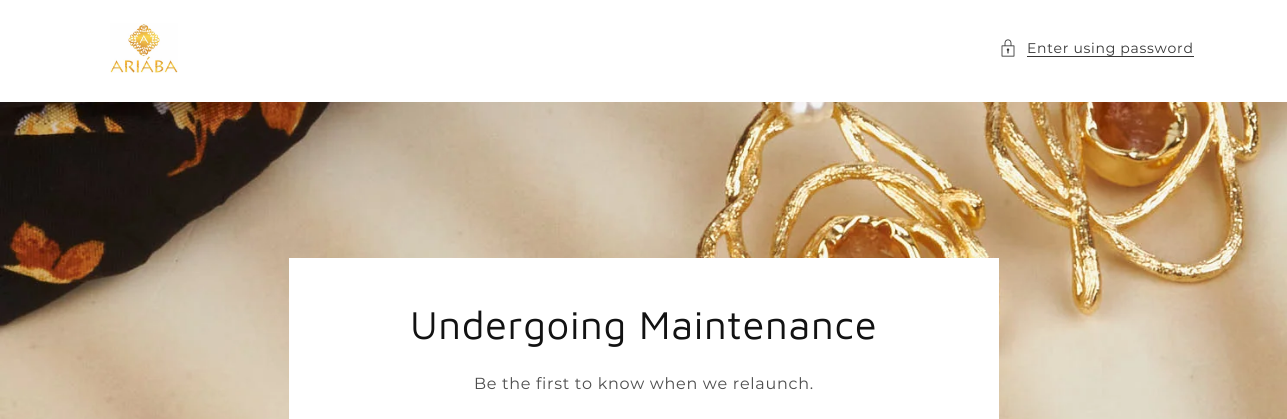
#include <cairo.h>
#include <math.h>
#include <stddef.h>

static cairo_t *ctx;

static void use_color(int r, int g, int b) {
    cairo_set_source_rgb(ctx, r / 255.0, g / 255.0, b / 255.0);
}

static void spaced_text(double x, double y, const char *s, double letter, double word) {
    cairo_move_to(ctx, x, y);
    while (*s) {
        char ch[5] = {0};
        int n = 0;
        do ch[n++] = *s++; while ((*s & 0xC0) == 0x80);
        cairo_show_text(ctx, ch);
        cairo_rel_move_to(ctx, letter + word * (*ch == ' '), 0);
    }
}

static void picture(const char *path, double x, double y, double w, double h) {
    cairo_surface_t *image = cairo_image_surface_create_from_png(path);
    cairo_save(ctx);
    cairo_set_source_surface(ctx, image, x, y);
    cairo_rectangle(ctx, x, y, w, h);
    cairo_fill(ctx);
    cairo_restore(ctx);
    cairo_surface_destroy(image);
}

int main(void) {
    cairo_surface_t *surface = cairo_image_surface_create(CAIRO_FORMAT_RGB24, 1287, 419);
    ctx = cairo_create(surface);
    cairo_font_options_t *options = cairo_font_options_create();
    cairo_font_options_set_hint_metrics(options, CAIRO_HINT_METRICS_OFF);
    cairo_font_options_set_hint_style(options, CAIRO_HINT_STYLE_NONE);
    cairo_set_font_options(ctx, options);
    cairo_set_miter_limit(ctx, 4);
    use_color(255, 255, 255);
    cairo_paint(ctx);
    picture("img1.png", 110, 23, 68, 50);
    picture("img2.png", 1001, 39, 14, 18);
    cairo_select_font_face(ctx, "Montserrat", CAIRO_FONT_SLANT_NORMAL, CAIRO_FONT_WEIGHT_NORMAL);
    cairo_set_font_size(ctx, 14);
    use_color(54, 54, 54);
    spaced_text(1027, 53, "Enter using password", 0.7, 0);
    cairo_rectangle(ctx, 1027, 56, 167, 1);
    cairo_fill(ctx);
    picture("img3.png", 0, 102, 1287, 317);
    use_color(255, 255, 255);
    cairo_rectangle(ctx, 289, 258, 710, 161);
    cairo_fill(ctx);
    cairo_select_font_face(ctx, "Maven Pro", CAIRO_FONT_SLANT_NORMAL, CAIRO_FONT_WEIGHT_NORMAL);
    cairo_set_font_size(ctx, 40);
    use_color(18, 18, 18);
    spaced_text(410, 339, "Undergoing Maintenance", 0.6, 0);
    cairo_select_font_face(ctx, "Montserrat", CAIRO_FONT_SLANT_NORMAL, CAIRO_FONT_WEIGHT_NORMAL);
    cairo_set_font_size(ctx, 16);
    use_color(77, 77, 77);
    spaced_text(474, 389, "Be the first to know when we relaunch.", 0.7, 0);
    cairo_surface_write_to_png(surface, "result.png");
    cairo_font_options_destroy(options);
    cairo_destroy(ctx);
    cairo_surface_destroy(surface);
    return 0;
}
